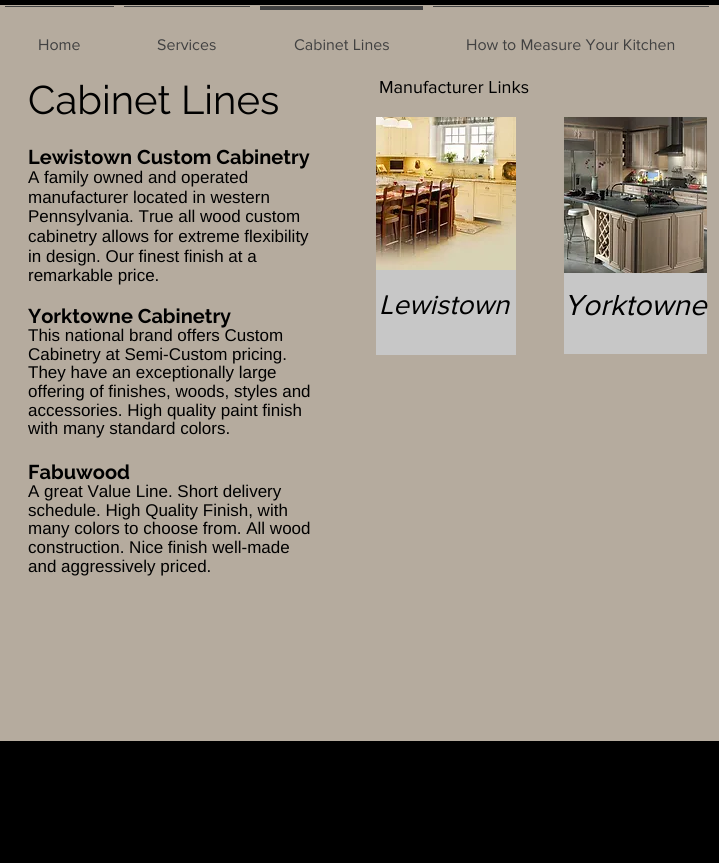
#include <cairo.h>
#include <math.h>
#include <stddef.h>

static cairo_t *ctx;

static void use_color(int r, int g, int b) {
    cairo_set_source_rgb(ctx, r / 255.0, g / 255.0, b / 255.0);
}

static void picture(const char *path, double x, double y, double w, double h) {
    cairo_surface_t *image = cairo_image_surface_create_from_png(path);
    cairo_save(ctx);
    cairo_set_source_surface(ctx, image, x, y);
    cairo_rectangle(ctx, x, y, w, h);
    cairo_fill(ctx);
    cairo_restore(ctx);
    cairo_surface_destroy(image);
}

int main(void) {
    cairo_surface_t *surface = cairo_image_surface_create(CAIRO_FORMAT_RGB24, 719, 863);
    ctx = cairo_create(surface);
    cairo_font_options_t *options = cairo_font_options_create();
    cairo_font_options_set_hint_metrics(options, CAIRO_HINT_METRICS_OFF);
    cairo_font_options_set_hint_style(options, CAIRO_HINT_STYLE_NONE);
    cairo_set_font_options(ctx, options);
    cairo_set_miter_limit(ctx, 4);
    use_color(0, 0, 0);
    cairo_paint(ctx);
    use_color(181, 171, 158);
    cairo_rectangle(ctx, 0, 5, 719, 736);
    cairo_fill(ctx);
    use_color(65, 65, 65);
    cairo_rectangle(ctx, 5, 6, 109, 1);
    cairo_fill(ctx);
    cairo_select_font_face(ctx, "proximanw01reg", CAIRO_FONT_SLANT_NORMAL, CAIRO_FONT_WEIGHT_NORMAL);
    cairo_set_font_size(ctx, 16);
    cairo_move_to(ctx, 38, 50);
    cairo_show_text(ctx, "Home");
    cairo_rectangle(ctx, 124, 6, 126, 1);
    cairo_fill(ctx);
    cairo_move_to(ctx, 157, 50);
    cairo_show_text(ctx, "Services");
    cairo_rectangle(ctx, 260, 6, 163, 4);
    cairo_fill(ctx);
    cairo_move_to(ctx, 294, 50);
    cairo_show_text(ctx, "Cabinet Lines");
    cairo_rectangle(ctx, 433, 6, 276, 1);
    cairo_fill(ctx);
    cairo_move_to(ctx, 466, 50);
    cairo_show_text(ctx, "How to Measure Your Kitchen");
    cairo_select_font_face(ctx, "Raleway", CAIRO_FONT_SLANT_NORMAL, CAIRO_FONT_WEIGHT_NORMAL);
    cairo_set_font_size(ctx, 40);
    use_color(0, 0, 0);
    cairo_move_to(ctx, 28, 114);
    cairo_show_text(ctx, "Cabinet Lines");
    cairo_select_font_face(ctx, "proximanw01reg", CAIRO_FONT_SLANT_NORMAL, CAIRO_FONT_WEIGHT_NORMAL);
    cairo_set_font_size(ctx, 18);
    cairo_move_to(ctx, 379, 93);
    cairo_show_text(ctx, "Manufacturer Links");
    cairo_select_font_face(ctx, "Raleway", CAIRO_FONT_SLANT_NORMAL, CAIRO_FONT_WEIGHT_BOLD);
    cairo_set_font_size(ctx, 20);
    cairo_move_to(ctx, 28, 164);
    cairo_show_text(ctx, "Lewistown Custom Cabinetry");
    cairo_select_font_face(ctx, "Liberation Sans", CAIRO_FONT_SLANT_NORMAL, CAIRO_FONT_WEIGHT_NORMAL);
    cairo_set_font_size(ctx, 17);
    cairo_move_to(ctx, 28, 183);
    cairo_show_text(ctx, "A family owned and operated");
    cairo_move_to(ctx, 28, 203);
    cairo_show_text(ctx, "manufacturer located in western");
    cairo_move_to(ctx, 28, 222);
    cairo_show_text(ctx, "Pennsylvania. True all wood custom");
    cairo_move_to(ctx, 28, 242);
    cairo_show_text(ctx, "cabinetry allows for extreme flexibility");
    cairo_move_to(ctx, 28, 262);
    cairo_show_text(ctx, "in design. Our finest finish at a");
    cairo_move_to(ctx, 28, 281);
    cairo_show_text(ctx, "remarkable price.");
    cairo_select_font_face(ctx, "Raleway", CAIRO_FONT_SLANT_NORMAL, CAIRO_FONT_WEIGHT_BOLD);
    cairo_set_font_size(ctx, 20);
    cairo_move_to(ctx, 28, 323);
    cairo_show_text(ctx, "Yorktowne Cabinetry");
    cairo_select_font_face(ctx, "Liberation Sans", CAIRO_FONT_SLANT_NORMAL, CAIRO_FONT_WEIGHT_NORMAL);
    cairo_set_font_size(ctx, 17);
    cairo_move_to(ctx, 28, 341);
    cairo_show_text(ctx, "This national brand offers Custom");
    cairo_move_to(ctx, 28, 360);
    cairo_show_text(ctx, "Cabinetry at Semi-Custom pricing.");
    cairo_move_to(ctx, 28, 378);
    cairo_show_text(ctx, "They have an exceptionally large");
    cairo_move_to(ctx, 28, 397);
    cairo_show_text(ctx, "offering of finishes, woods, styles and");
    cairo_move_to(ctx, 28, 416);
    cairo_show_text(ctx, "accessories. High quality paint finish");
    cairo_move_to(ctx, 28, 434);
    cairo_show_text(ctx, "with many standard colors.");
    cairo_select_font_face(ctx, "Raleway", CAIRO_FONT_SLANT_NORMAL, CAIRO_FONT_WEIGHT_BOLD);
    cairo_set_font_size(ctx, 20);
    cairo_move_to(ctx, 28, 479);
    cairo_show_text(ctx, "Fabuwood");
    cairo_select_font_face(ctx, "Liberation Sans", CAIRO_FONT_SLANT_NORMAL, CAIRO_FONT_WEIGHT_NORMAL);
    cairo_set_font_size(ctx, 17);
    cairo_move_to(ctx, 28, 497);
    cairo_show_text(ctx, "A great Value Line. Short delivery");
    cairo_move_to(ctx, 28, 516);
    cairo_show_text(ctx, "schedule. High Quality Finish, with");
    cairo_move_to(ctx, 28, 534);
    cairo_show_text(ctx, "many colors to choose from. All wood");
    cairo_move_to(ctx, 28, 553);
    cairo_show_text(ctx, "construction. Nice finish well-made");
    cairo_move_to(ctx, 28, 572);
    cairo_show_text(ctx, "and aggressively priced.");
    use_color(199, 199, 199);
    cairo_rectangle(ctx, 376, 270, 140, 85);
    cairo_fill(ctx);
    picture("img1.png", 376, 117, 140, 153);
    cairo_select_font_face(ctx, "proximanw01reg", CAIRO_FONT_SLANT_ITALIC, CAIRO_FONT_WEIGHT_NORMAL);
    cairo_set_font_size(ctx, 28);
    use_color(0, 0, 0);
    cairo_move_to(ctx, 379, 314);
    cairo_show_text(ctx, "Lewistown");
    use_color(199, 199, 199);
    cairo_rectangle(ctx, 564, 273, 143, 81);
    cairo_fill(ctx);
    picture("img2.png", 564, 117, 143, 156);
    cairo_set_font_size(ctx, 30);
    use_color(0, 0, 0);
    cairo_move_to(ctx, 564, 315);
    cairo_show_text(ctx, "Yorktowne");
    cairo_surface_write_to_png(surface, "result.png");
    cairo_font_options_destroy(options);
    cairo_destroy(ctx);
    cairo_surface_destroy(surface);
    return 0;
}
